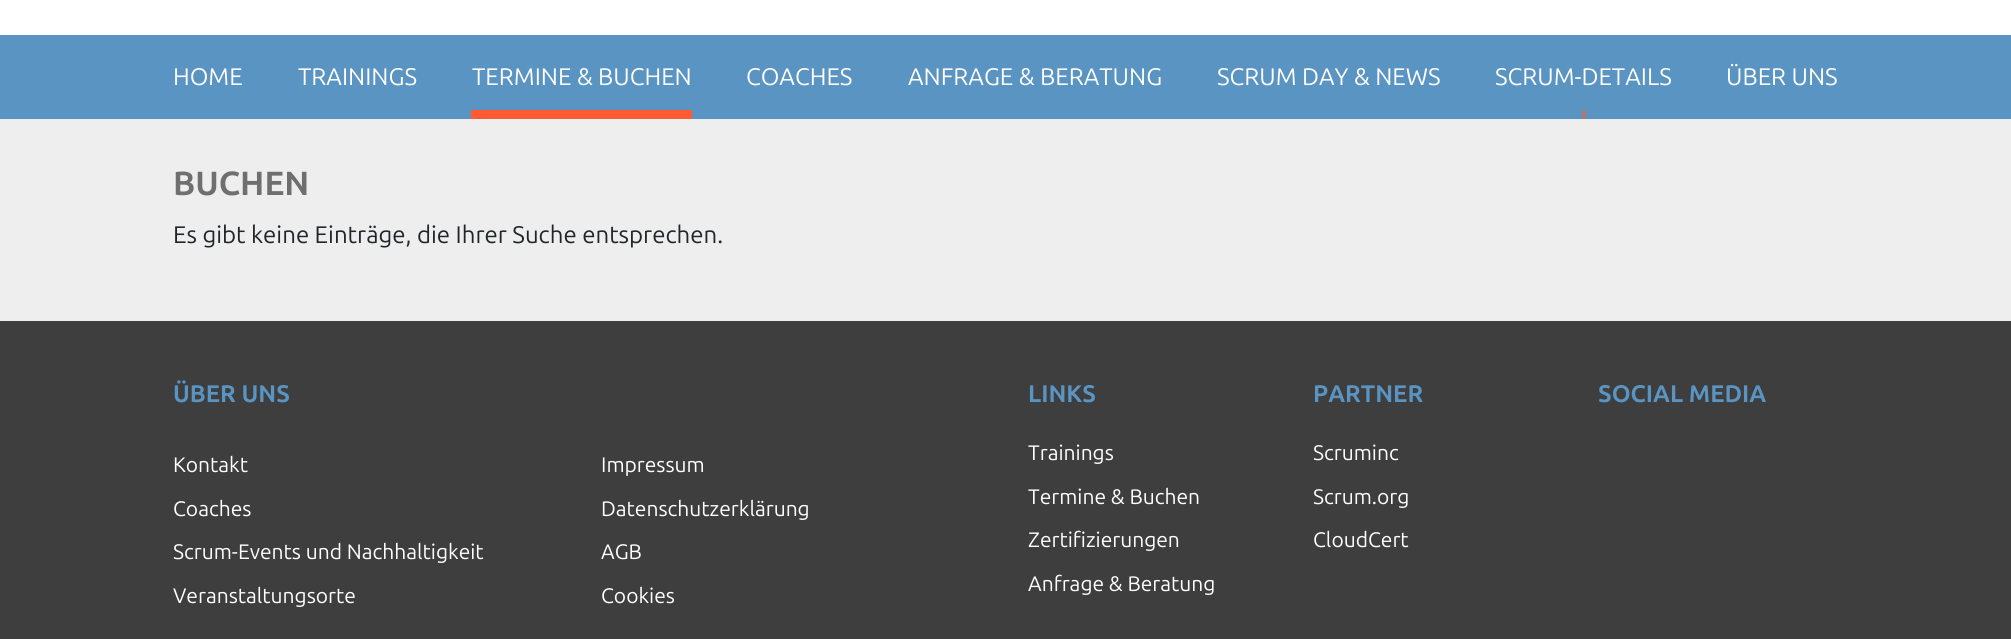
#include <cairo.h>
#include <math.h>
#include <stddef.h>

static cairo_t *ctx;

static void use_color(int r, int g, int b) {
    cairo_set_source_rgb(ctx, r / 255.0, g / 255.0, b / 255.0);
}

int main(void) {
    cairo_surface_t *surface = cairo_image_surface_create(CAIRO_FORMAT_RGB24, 2011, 639);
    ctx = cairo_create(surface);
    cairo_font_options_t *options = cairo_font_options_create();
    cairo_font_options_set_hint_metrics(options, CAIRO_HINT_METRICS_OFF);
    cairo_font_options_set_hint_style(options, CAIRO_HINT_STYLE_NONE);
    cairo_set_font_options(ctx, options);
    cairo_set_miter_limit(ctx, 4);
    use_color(238, 238, 238);
    cairo_paint(ctx);
    use_color(255, 255, 255);
    cairo_rectangle(ctx, 0, 0, 2011, 35);
    cairo_fill(ctx);
    use_color(90, 148, 194);
    cairo_rectangle(ctx, 0, 35, 2011, 84);
    cairo_fill(ctx);
    cairo_select_font_face(ctx, "Ubuntu", CAIRO_FONT_SLANT_NORMAL, CAIRO_FONT_WEIGHT_NORMAL);
    cairo_set_font_size(ctx, 24);
    use_color(255, 255, 255);
    cairo_move_to(ctx, 173, 85);
    cairo_show_text(ctx, "HOME");
    cairo_move_to(ctx, 298, 85);
    cairo_show_text(ctx, "TRAININGS");
    cairo_move_to(ctx, 472, 85);
    cairo_show_text(ctx, "TERMINE & BUCHEN");
    use_color(255, 90, 49);
    cairo_rectangle(ctx, 471, 110, 221, 9);
    cairo_fill(ctx);
    use_color(255, 255, 255);
    cairo_move_to(ctx, 746, 85);
    cairo_show_text(ctx, "COACHES");
    cairo_move_to(ctx, 908, 85);
    cairo_show_text(ctx, "ANFRAGE & BERATUNG");
    cairo_move_to(ctx, 1217, 85);
    cairo_show_text(ctx, "SCRUM DAY & NEWS");
    cairo_move_to(ctx, 1495, 85);
    cairo_show_text(ctx, "SCRUM-DETAILS");
    use_color(255, 90, 49);
    cairo_rectangle(ctx, 1583, 110, 2, 9);
    cairo_fill(ctx);
    use_color(255, 255, 255);
    cairo_move_to(ctx, 1726, 85);
    cairo_show_text(ctx, "ÜBER UNS");
    cairo_select_font_face(ctx, "Ubuntu", CAIRO_FONT_SLANT_NORMAL, CAIRO_FONT_WEIGHT_BOLD);
    cairo_set_font_size(ctx, 33.5);
    use_color(111, 111, 111);
    cairo_move_to(ctx, 173, 195);
    cairo_show_text(ctx, "BUCHEN");
    cairo_select_font_face(ctx, "Ubuntu", CAIRO_FONT_SLANT_NORMAL, CAIRO_FONT_WEIGHT_NORMAL);
    cairo_set_font_size(ctx, 24);
    use_color(33, 37, 41);
    cairo_move_to(ctx, 173, 243);
    cairo_show_text(ctx, "Es gibt keine Einträge, die Ihrer Suche entsprechen.");
    use_color(62, 62, 62);
    cairo_rectangle(ctx, 0, 321, 2011, 318);
    cairo_fill(ctx);
    cairo_select_font_face(ctx, "Ubuntu", CAIRO_FONT_SLANT_NORMAL, CAIRO_FONT_WEIGHT_BOLD);
    use_color(90, 148, 194);
    cairo_move_to(ctx, 173, 402);
    cairo_show_text(ctx, "ÜBER UNS");
    cairo_select_font_face(ctx, "Ubuntu", CAIRO_FONT_SLANT_NORMAL, CAIRO_FONT_WEIGHT_NORMAL);
    cairo_set_font_size(ctx, 21);
    use_color(255, 255, 255);
    cairo_move_to(ctx, 173, 472);
    cairo_show_text(ctx, "Kontakt");
    cairo_move_to(ctx, 173, 516);
    cairo_show_text(ctx, "Coaches");
    cairo_move_to(ctx, 173, 559);
    cairo_show_text(ctx, "Scrum-Events und Nachhaltigkeit");
    cairo_move_to(ctx, 173, 603);
    cairo_show_text(ctx, "Veranstaltungsorte");
    cairo_move_to(ctx, 601, 472);
    cairo_show_text(ctx, "Impressum");
    cairo_move_to(ctx, 601, 516);
    cairo_show_text(ctx, "Datenschutzerklärung");
    cairo_move_to(ctx, 601, 559);
    cairo_show_text(ctx, "AGB");
    cairo_move_to(ctx, 601, 603);
    cairo_show_text(ctx, "Cookies");
    cairo_select_font_face(ctx, "Ubuntu", CAIRO_FONT_SLANT_NORMAL, CAIRO_FONT_WEIGHT_BOLD);
    cairo_set_font_size(ctx, 24);
    use_color(90, 148, 194);
    cairo_move_to(ctx, 1028, 402);
    cairo_show_text(ctx, "LINKS");
    cairo_select_font_face(ctx, "Ubuntu", CAIRO_FONT_SLANT_NORMAL, CAIRO_FONT_WEIGHT_NORMAL);
    cairo_set_font_size(ctx, 21);
    use_color(255, 255, 255);
    cairo_move_to(ctx, 1028, 460);
    cairo_show_text(ctx, "Trainings");
    cairo_move_to(ctx, 1028, 504);
    cairo_show_text(ctx, "Termine & Buchen");
    cairo_move_to(ctx, 1028, 547);
    cairo_show_text(ctx, "Zertifizierungen");
    cairo_move_to(ctx, 1028, 591);
    cairo_show_text(ctx, "Anfrage & Beratung");
    cairo_select_font_face(ctx, "Ubuntu", CAIRO_FONT_SLANT_NORMAL, CAIRO_FONT_WEIGHT_BOLD);
    cairo_set_font_size(ctx, 24);
    use_color(90, 148, 194);
    cairo_move_to(ctx, 1313, 402);
    cairo_show_text(ctx, "PARTNER");
    cairo_select_font_face(ctx, "Ubuntu", CAIRO_FONT_SLANT_NORMAL, CAIRO_FONT_WEIGHT_NORMAL);
    cairo_set_font_size(ctx, 21);
    use_color(255, 255, 255);
    cairo_move_to(ctx, 1313, 460);
    cairo_show_text(ctx, "Scruminc");
    cairo_move_to(ctx, 1313, 504);
    cairo_show_text(ctx, "Scrum.org");
    cairo_move_to(ctx, 1313, 547);
    cairo_show_text(ctx, "CloudCert");
    cairo_select_font_face(ctx, "Ubuntu", CAIRO_FONT_SLANT_NORMAL, CAIRO_FONT_WEIGHT_BOLD);
    cairo_set_font_size(ctx, 24);
    use_color(90, 148, 194);
    cairo_move_to(ctx, 1598, 402);
    cairo_show_text(ctx, "SOCIAL MEDIA");
    cairo_surface_write_to_png(surface, "result.png");
    cairo_font_options_destroy(options);
    cairo_destroy(ctx);
    cairo_surface_destroy(surface);
    return 0;
}
